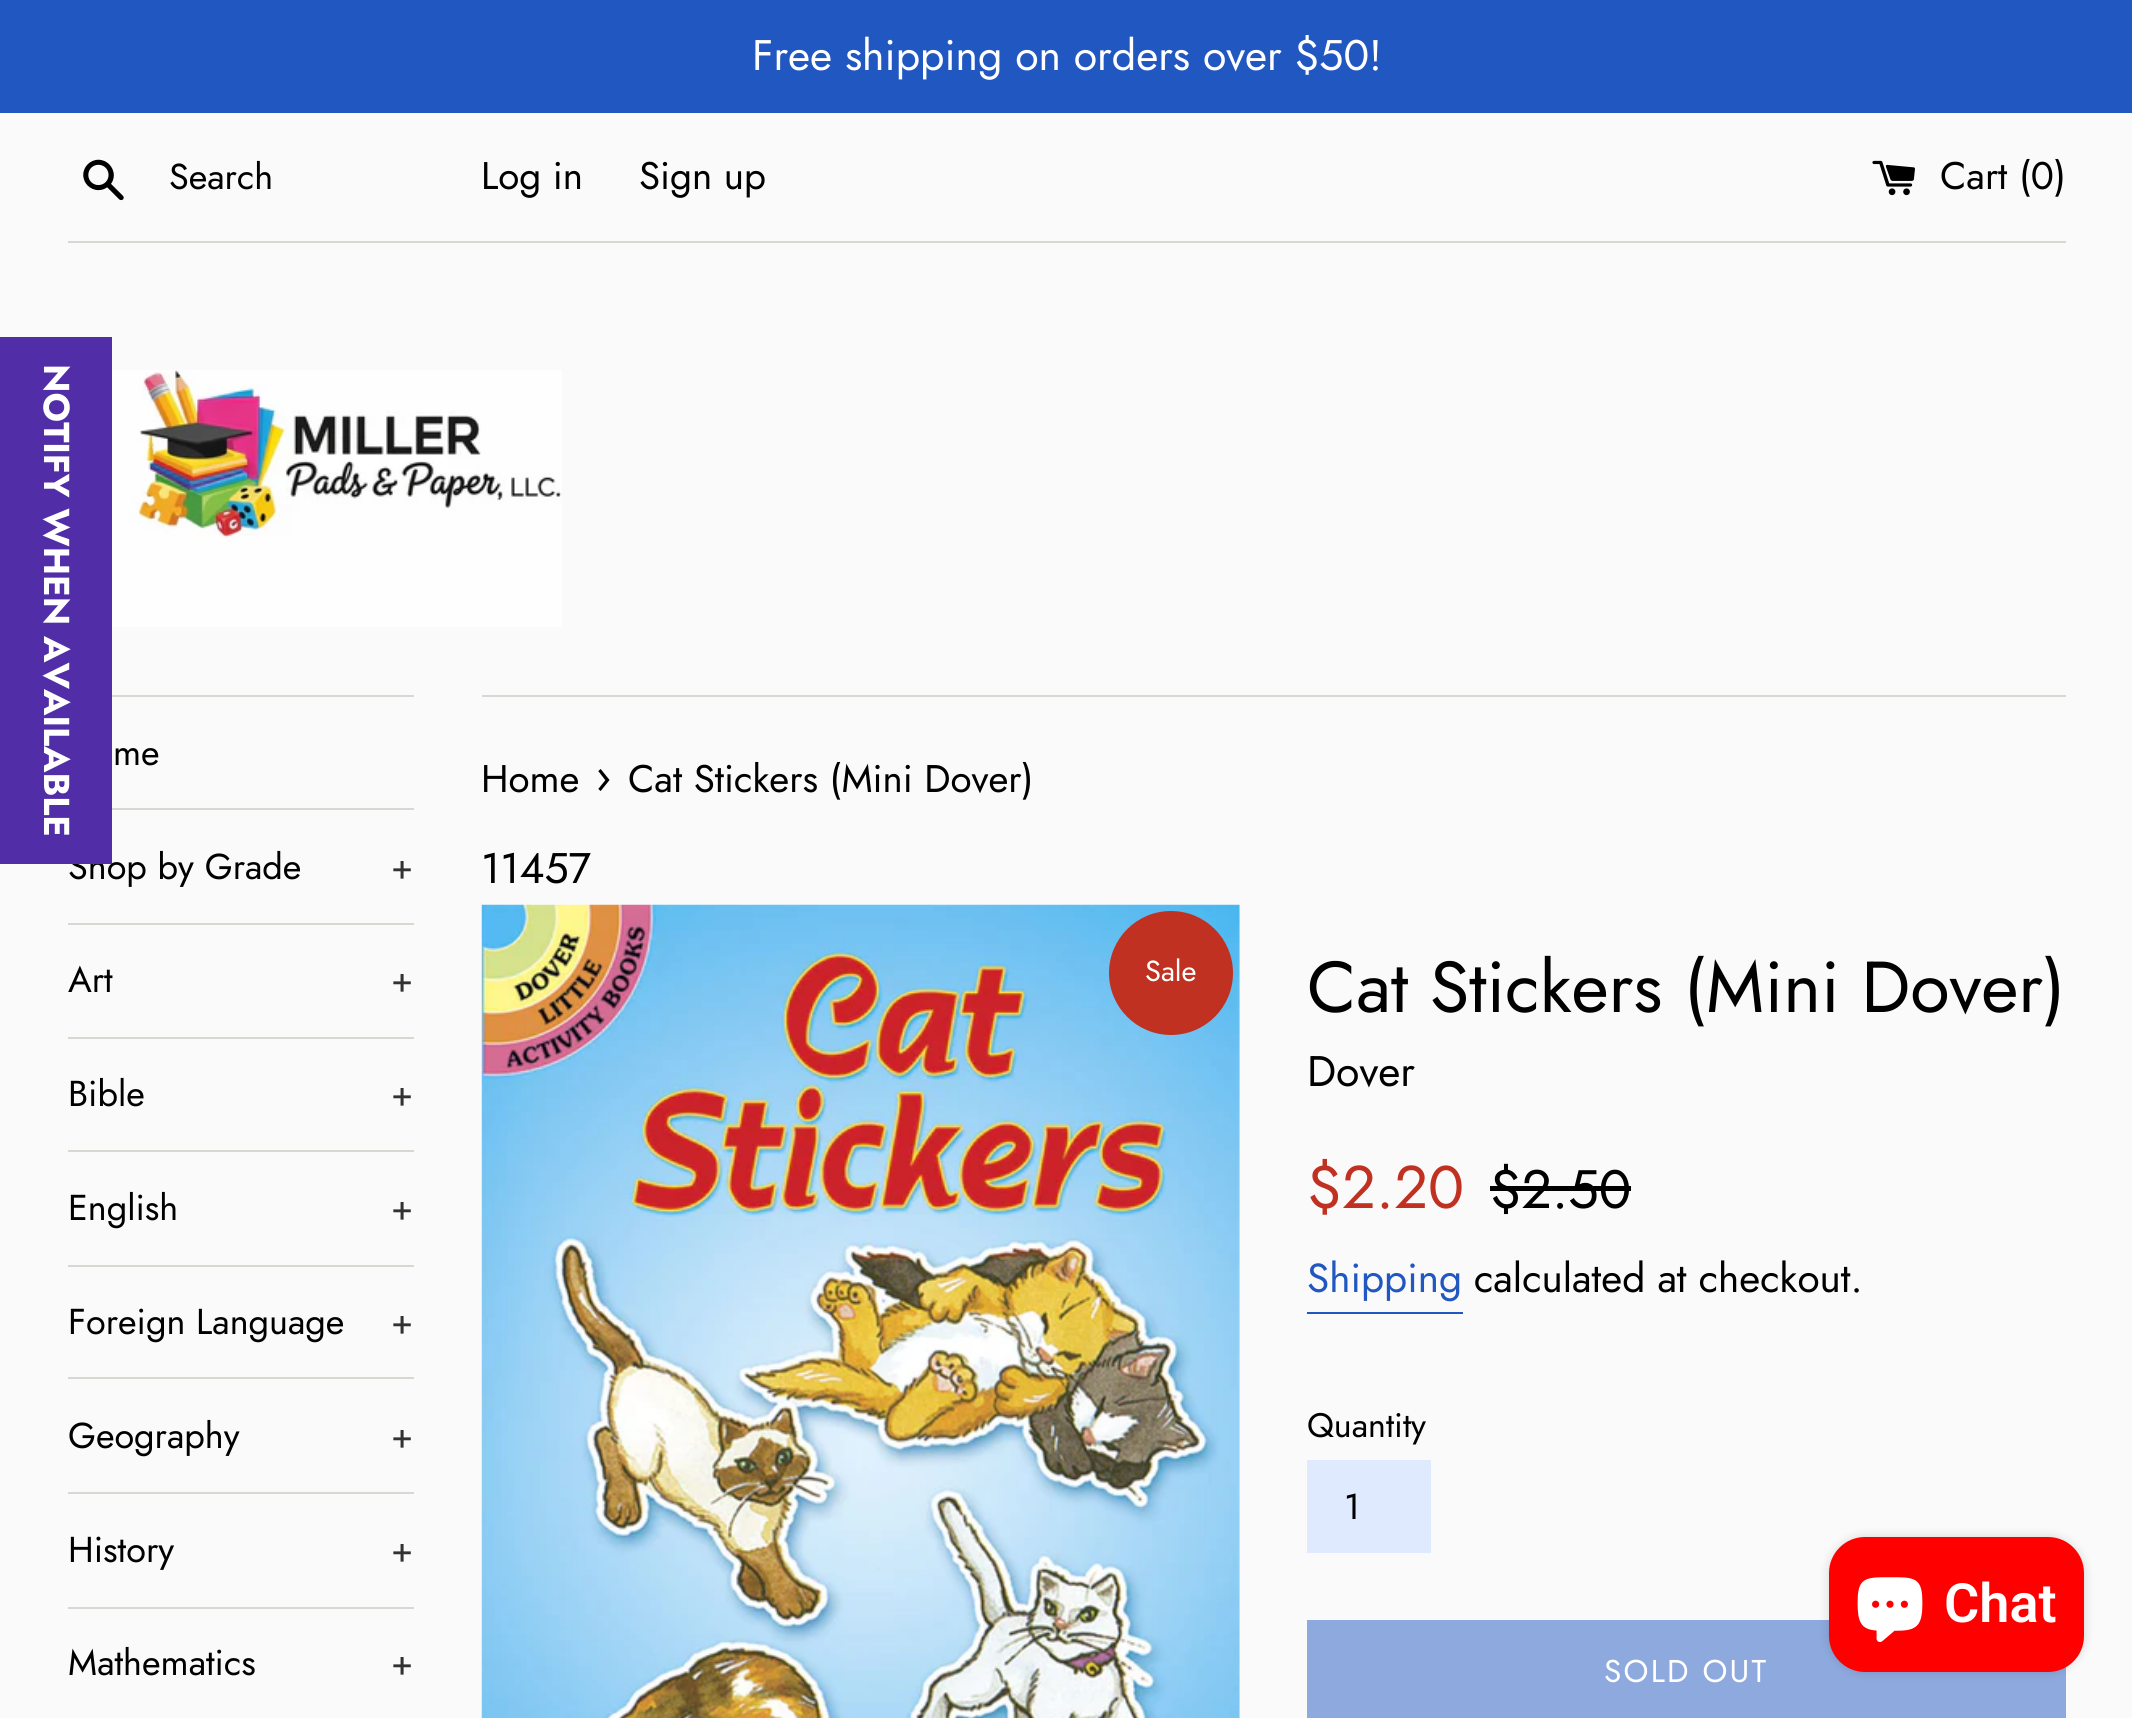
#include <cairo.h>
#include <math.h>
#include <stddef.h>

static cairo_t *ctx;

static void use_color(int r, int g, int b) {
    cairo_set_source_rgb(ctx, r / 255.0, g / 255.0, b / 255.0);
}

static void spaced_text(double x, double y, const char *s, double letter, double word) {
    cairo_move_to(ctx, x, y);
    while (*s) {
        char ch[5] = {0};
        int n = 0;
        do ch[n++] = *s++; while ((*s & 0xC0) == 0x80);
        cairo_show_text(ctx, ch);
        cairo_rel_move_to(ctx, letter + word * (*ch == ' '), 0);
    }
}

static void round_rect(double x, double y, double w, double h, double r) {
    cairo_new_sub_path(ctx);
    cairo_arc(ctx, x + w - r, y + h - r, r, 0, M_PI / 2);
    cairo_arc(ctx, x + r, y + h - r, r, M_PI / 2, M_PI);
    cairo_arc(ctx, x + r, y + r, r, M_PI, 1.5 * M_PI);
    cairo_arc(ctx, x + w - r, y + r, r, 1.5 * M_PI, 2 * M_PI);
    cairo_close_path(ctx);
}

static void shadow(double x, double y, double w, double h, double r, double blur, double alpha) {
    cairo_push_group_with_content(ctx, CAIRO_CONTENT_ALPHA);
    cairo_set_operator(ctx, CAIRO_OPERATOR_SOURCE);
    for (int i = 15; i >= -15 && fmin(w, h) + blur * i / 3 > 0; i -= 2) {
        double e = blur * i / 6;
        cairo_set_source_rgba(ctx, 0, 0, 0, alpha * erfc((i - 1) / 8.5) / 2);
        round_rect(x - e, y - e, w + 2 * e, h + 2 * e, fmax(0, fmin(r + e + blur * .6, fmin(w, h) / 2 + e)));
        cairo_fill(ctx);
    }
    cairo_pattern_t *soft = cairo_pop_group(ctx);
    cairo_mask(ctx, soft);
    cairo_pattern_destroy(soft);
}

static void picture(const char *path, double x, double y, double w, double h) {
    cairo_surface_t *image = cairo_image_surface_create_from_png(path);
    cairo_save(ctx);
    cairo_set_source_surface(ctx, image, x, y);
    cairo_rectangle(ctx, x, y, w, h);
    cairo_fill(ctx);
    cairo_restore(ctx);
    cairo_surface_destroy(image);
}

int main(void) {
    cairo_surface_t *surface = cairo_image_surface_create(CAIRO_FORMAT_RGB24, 2132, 1718);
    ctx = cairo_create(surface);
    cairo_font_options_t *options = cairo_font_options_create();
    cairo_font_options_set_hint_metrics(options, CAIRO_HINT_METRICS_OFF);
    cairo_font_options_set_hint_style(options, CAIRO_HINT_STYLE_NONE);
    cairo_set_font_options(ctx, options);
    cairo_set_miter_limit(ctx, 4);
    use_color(250, 250, 250);
    cairo_paint(ctx);
    use_color(33, 87, 193);
    cairo_rectangle(ctx, 0, 0, 2132, 113);
    cairo_fill(ctx);
    cairo_select_font_face(ctx, "Jost", CAIRO_FONT_SLANT_NORMAL, CAIRO_FONT_WEIGHT_NORMAL);
    cairo_set_font_size(ctx, 42.75);
    use_color(255, 255, 255);
    cairo_move_to(ctx, 752, 70);
    cairo_show_text(ctx, "Free shipping on orders over $50!");
    picture("img1.png", 83, 159, 41, 42);
    cairo_set_font_size(ctx, 36);
    use_color(0, 0, 0);
    cairo_move_to(ctx, 169, 189);
    cairo_show_text(ctx, "Search");
    cairo_set_font_size(ctx, 38.5);
    cairo_move_to(ctx, 481, 189);
    cairo_show_text(ctx, "Log in");
    cairo_move_to(ctx, 639, 189);
    cairo_show_text(ctx, "Sign up");
    picture("img2.png", 1872, 160, 43, 36);
    cairo_move_to(ctx, 1940, 189);
    cairo_show_text(ctx, "Cart (0)");
    use_color(215, 216, 210);
    cairo_rectangle(ctx, 68, 241, 1998, 2);
    cairo_fill(ctx);
    picture("img3.png", 112, 370, 450, 257);
    cairo_set_font_size(ctx, 36);
    use_color(0, 0, 0);
    cairo_move_to(ctx, 68, 879);
    cairo_show_text(ctx, "Shop by Grade");
    use_color(81, 45, 168);
    cairo_rectangle(ctx, 0, 337, 112, 527);
    cairo_fill(ctx);
    cairo_select_font_face(ctx, "Jost", CAIRO_FONT_SLANT_NORMAL, CAIRO_FONT_WEIGHT_BOLD);
    use_color(255, 255, 255);
    cairo_save(ctx);
    cairo_translate(ctx, 44, 364);
    cairo_rotate(ctx, 90 * M_PI / 180);
    cairo_move_to(ctx, 0, 0);
    cairo_show_text(ctx, "NOTIFY WHEN AVAILABLE");
    cairo_restore(ctx);
    use_color(215, 216, 210);
    cairo_rectangle(ctx, 112, 695, 302, 2);
    cairo_fill(ctx);
    cairo_rectangle(ctx, 112, 808, 302, 2);
    cairo_fill(ctx);
    cairo_select_font_face(ctx, "Jost", CAIRO_FONT_SLANT_NORMAL, CAIRO_FONT_WEIGHT_NORMAL);
    use_color(0, 0, 0);
    cairo_move_to(ctx, 113, 765);
    cairo_show_text(ctx, "me");
    use_color(215, 216, 210);
    cairo_rectangle(ctx, 68, 923, 346, 2);
    cairo_fill(ctx);
    use_color(50, 50, 50);
    cairo_move_to(ctx, 391, 879);
    cairo_show_text(ctx, "+");
    use_color(215, 216, 210);
    cairo_rectangle(ctx, 68, 1037, 346, 2);
    cairo_fill(ctx);
    use_color(0, 0, 0);
    cairo_move_to(ctx, 68, 992);
    cairo_show_text(ctx, "Art");
    use_color(50, 50, 50);
    cairo_move_to(ctx, 391, 992);
    cairo_show_text(ctx, "+");
    use_color(215, 216, 210);
    cairo_rectangle(ctx, 68, 1150, 346, 2);
    cairo_fill(ctx);
    use_color(0, 0, 0);
    cairo_move_to(ctx, 68, 1106);
    cairo_show_text(ctx, "Bible");
    use_color(50, 50, 50);
    cairo_move_to(ctx, 391, 1106);
    cairo_show_text(ctx, "+");
    use_color(215, 216, 210);
    cairo_rectangle(ctx, 68, 1265, 346, 2);
    cairo_fill(ctx);
    use_color(0, 0, 0);
    cairo_move_to(ctx, 68, 1220);
    cairo_show_text(ctx, "English");
    use_color(50, 50, 50);
    cairo_move_to(ctx, 391, 1220);
    cairo_show_text(ctx, "+");
    use_color(215, 216, 210);
    cairo_rectangle(ctx, 68, 1377, 346, 2);
    cairo_fill(ctx);
    use_color(0, 0, 0);
    cairo_move_to(ctx, 68, 1334);
    cairo_show_text(ctx, "Foreign Language");
    use_color(50, 50, 50);
    cairo_move_to(ctx, 391, 1334);
    cairo_show_text(ctx, "+");
    use_color(215, 216, 210);
    cairo_rectangle(ctx, 68, 1492, 346, 2);
    cairo_fill(ctx);
    use_color(0, 0, 0);
    cairo_move_to(ctx, 68, 1448);
    cairo_show_text(ctx, "Geography");
    use_color(50, 50, 50);
    cairo_move_to(ctx, 391, 1448);
    cairo_show_text(ctx, "+");
    use_color(215, 216, 210);
    cairo_rectangle(ctx, 68, 1607, 346, 2);
    cairo_fill(ctx);
    use_color(0, 0, 0);
    cairo_move_to(ctx, 68, 1562);
    cairo_show_text(ctx, "History");
    use_color(50, 50, 50);
    cairo_move_to(ctx, 391, 1562);
    cairo_show_text(ctx, "+");
    use_color(0, 0, 0);
    cairo_move_to(ctx, 68, 1675);
    cairo_show_text(ctx, "Mathematics");
    use_color(50, 50, 50);
    cairo_move_to(ctx, 391, 1675);
    cairo_show_text(ctx, "+");
    use_color(215, 216, 210);
    cairo_rectangle(ctx, 482, 695, 1584, 2);
    cairo_fill(ctx);
    cairo_set_font_size(ctx, 38.5);
    use_color(0, 0, 0);
    cairo_move_to(ctx, 481, 792);
    cairo_show_text(ctx, "Home");
    cairo_set_font_size(ctx, 47);
    cairo_move_to(ctx, 595, 792);
    cairo_show_text(ctx, "›");
    cairo_set_font_size(ctx, 38.5);
    cairo_move_to(ctx, 628, 792);
    cairo_show_text(ctx, "Cat Stickers (Mini Dover)");
    cairo_set_font_size(ctx, 42.75);
    cairo_move_to(ctx, 481, 883);
    cairo_show_text(ctx, "11457");
    picture("img4.png", 481, 904, 759, 814);
    use_color(193, 49, 33);
    cairo_arc(ctx, 1171, 973, 62, 0, 2 * M_PI);
    cairo_fill(ctx);
    cairo_set_font_size(ctx, 29);
    use_color(255, 255, 255);
    cairo_move_to(ctx, 1145, 981);
    cairo_show_text(ctx, "Sale");
    cairo_set_font_size(ctx, 72);
    use_color(0, 0, 0);
    cairo_move_to(ctx, 1307, 1012);
    cairo_show_text(ctx, "Cat Stickers (Mini Dover)");
    cairo_set_font_size(ctx, 42.75);
    cairo_move_to(ctx, 1307, 1086);
    cairo_show_text(ctx, "Dover");
    cairo_set_font_size(ctx, 60);
    use_color(193, 49, 33);
    cairo_move_to(ctx, 1307, 1208);
    cairo_show_text(ctx, "$2.20");
    cairo_set_font_size(ctx, 54);
    use_color(0, 0, 0);
    cairo_move_to(ctx, 1490, 1208);
    cairo_show_text(ctx, "$2.50");
    cairo_rectangle(ctx, 1490, 1186, 141, 5);
    cairo_fill(ctx);
    cairo_set_font_size(ctx, 40.5);
    use_color(33, 87, 193);
    cairo_move_to(ctx, 1307, 1292);
    cairo_show_text(ctx, "Shipping");
    cairo_rectangle(ctx, 1307, 1312, 156, 2);
    cairo_fill(ctx);
    use_color(0, 0, 0);
    cairo_move_to(ctx, 1474, 1292);
    cairo_show_text(ctx, "calculated at checkout.");
    cairo_set_font_size(ctx, 34);
    cairo_move_to(ctx, 1307, 1437);
    cairo_show_text(ctx, "Quantity");
    use_color(223, 234, 255);
    cairo_rectangle(ctx, 1307, 1460, 124, 93);
    cairo_fill(ctx);
    cairo_set_font_size(ctx, 36);
    use_color(0, 0, 0);
    cairo_move_to(ctx, 1344, 1519);
    cairo_show_text(ctx, "1");
    use_color(142, 169, 222);
    cairo_rectangle(ctx, 1307, 1620, 759, 98);
    cairo_fill(ctx);
    cairo_set_font_size(ctx, 31.5);
    use_color(255, 255, 255);
    spaced_text(1604, 1682, "SOLD OUT", 2.25, 0);
    use_color(0, 0, 0);
    shadow(1829, 1537, 255, 135, 36, 5.5, 0.15);
    use_color(255, 0, 0);
    round_rect(1829, 1537, 255, 135, 36);
    cairo_fill(ctx);
    picture("img5.png", 1857, 1577, 66, 65);
    cairo_select_font_face(ctx, "Roboto SemiBold", CAIRO_FONT_SLANT_NORMAL, CAIRO_FONT_WEIGHT_NORMAL);
    cairo_set_font_size(ctx, 54);
    use_color(255, 255, 255);
    cairo_move_to(ctx, 1944, 1622);
    cairo_show_text(ctx, "Chat");
    cairo_surface_write_to_png(surface, "result.png");
    cairo_font_options_destroy(options);
    cairo_destroy(ctx);
    cairo_surface_destroy(surface);
    return 0;
}
